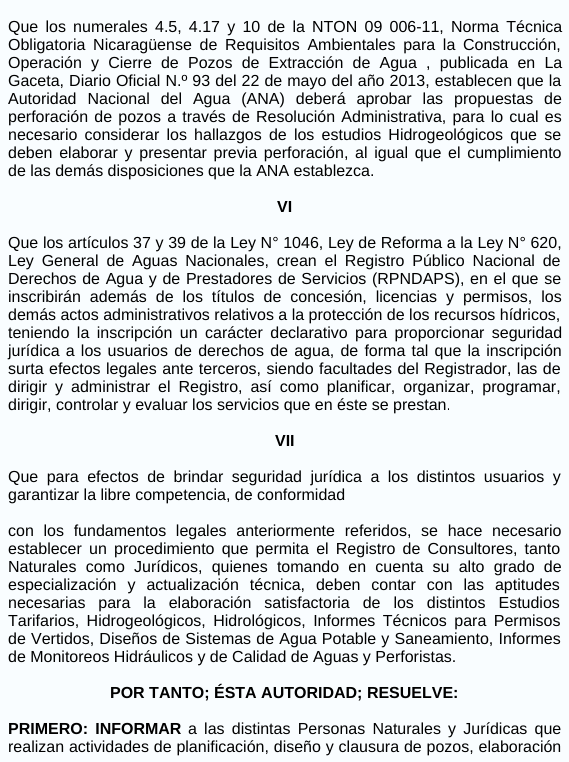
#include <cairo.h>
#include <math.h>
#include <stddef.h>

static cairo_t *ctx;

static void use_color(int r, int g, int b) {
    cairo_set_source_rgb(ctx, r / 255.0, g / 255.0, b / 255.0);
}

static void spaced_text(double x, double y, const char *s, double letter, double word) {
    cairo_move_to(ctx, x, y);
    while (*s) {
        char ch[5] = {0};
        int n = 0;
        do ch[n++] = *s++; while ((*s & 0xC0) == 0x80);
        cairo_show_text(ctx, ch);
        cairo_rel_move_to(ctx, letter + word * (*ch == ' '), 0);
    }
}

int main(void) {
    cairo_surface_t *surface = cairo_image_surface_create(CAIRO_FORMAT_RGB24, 569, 762);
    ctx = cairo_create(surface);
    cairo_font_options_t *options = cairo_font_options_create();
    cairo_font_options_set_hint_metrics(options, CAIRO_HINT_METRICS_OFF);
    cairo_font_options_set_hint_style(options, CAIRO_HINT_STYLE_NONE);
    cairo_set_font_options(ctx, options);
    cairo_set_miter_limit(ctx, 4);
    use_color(249, 253, 255);
    cairo_paint(ctx);
    cairo_select_font_face(ctx, "Liberation Sans", CAIRO_FONT_SLANT_NORMAL, CAIRO_FONT_WEIGHT_NORMAL);
    cairo_set_font_size(ctx, 16);
    use_color(0, 0, 0);
    spaced_text(8, 32, "Que los numerales 4.5, 4.17 y 10 de la NTON 09 006-11, Norma Técnica", 0, 2.75);
    spaced_text(8, 50, "Obligatoria Nicaragüense de Requisitos Ambientales para la Construcción,", 0, 3.25);
    spaced_text(8, 68, "Operación y Cierre de Pozos de Extracción de Agua , publicada en La", 0, 4.75);
    spaced_text(8, 86, "Gaceta, Diario Oficial N.º 93 del 22 de mayo del año 2013, establecen que la", 0, 0.6);
    spaced_text(8, 104, "Autoridad Nacional del Agua (ANA) deberá aprobar las propuestas de", 0, 6.5);
    spaced_text(8, 122, "perforación de pozos a través de Resolución Administrativa, para lo cual es", 0, 1.75);
    spaced_text(8, 140, "necesario considerar los hallazgos de los estudios Hidrogeológicos que se", 0, 2.75);
    spaced_text(8, 158, "deben elaborar y presentar previa perforación, al igual que el cumplimiento", 0, 2.25);
    cairo_move_to(ctx, 8, 176);
    cairo_show_text(ctx, "de las demás disposiciones que la ANA establezca.");
    cairo_select_font_face(ctx, "Liberation Sans", CAIRO_FONT_SLANT_NORMAL, CAIRO_FONT_WEIGHT_BOLD);
    cairo_move_to(ctx, 277, 212);
    cairo_show_text(ctx, "VI");
    cairo_select_font_face(ctx, "Liberation Sans", CAIRO_FONT_SLANT_NORMAL, CAIRO_FONT_WEIGHT_NORMAL);
    spaced_text(8, 248, "Que los artículos 37 y 39 de la Ley N° 1046, Ley de Reforma a la Ley N° 620,", 0, 0.2);
    spaced_text(8, 266, "Ley General de Aguas Nacionales, crean el Registro Público Nacional de", 0, 3.4);
    spaced_text(8, 284, "Derechos de Agua y de Prestadores de Servicios (RPNDAPS), en el que se", 0, 1.25);
    spaced_text(8, 302, "inscribirán además de los títulos de concesión, licencias y permisos, los", 0, 4.5);
    cairo_move_to(ctx, 8, 320);
    cairo_show_text(ctx, "demás actos administrativos relativos a la protección de los recursos hídricos,");
    spaced_text(8, 338, "teniendo la inscripción un carácter declarativo para proporcionar seguridad", 0, 3);
    spaced_text(8, 356, "jurídica a los usuarios de derechos de agua, de forma tal que la inscripción", 0, 1.75);
    spaced_text(8, 374, "surta efectos legales ante terceros, siendo facultades del Registrador, las de", 0, 1);
    spaced_text(8, 392, "dirigir y administrar el Registro, así como planificar, organizar, programar,", 0, 3.5);
    cairo_move_to(ctx, 8, 410);
    cairo_show_text(ctx, "dirigir, controlar y evaluar los servicios que en éste se prestan.");
    cairo_select_font_face(ctx, "Liberation Sans", CAIRO_FONT_SLANT_NORMAL, CAIRO_FONT_WEIGHT_BOLD);
    cairo_move_to(ctx, 275, 446);
    cairo_show_text(ctx, "VII");
    cairo_select_font_face(ctx, "Liberation Sans", CAIRO_FONT_SLANT_NORMAL, CAIRO_FONT_WEIGHT_NORMAL);
    spaced_text(8, 482, "Que para efectos de brindar seguridad jurídica a los distintos usuarios y", 0, 4);
    cairo_move_to(ctx, 8, 500);
    cairo_show_text(ctx, "garantizar la libre competencia, de conformidad");
    spaced_text(8, 536, "con los fundamentos legales anteriormente referidos, se hace necesario", 0, 5.25);
    spaced_text(8, 554, "establecer un procedimiento que permita el Registro de Consultores, tanto", 0, 2.75);
    spaced_text(8, 572, "Naturales como Jurídicos, quienes tomando en cuenta su alto grado de", 0, 4.75);
    spaced_text(8, 590, "especialización y actualización técnica, deben contar con las aptitudes", 0, 6.5);
    spaced_text(8, 608, "necesarias para la elaboración satisfactoria de los distintos Estudios", 0, 8.5);
    spaced_text(8, 626, "Tarifarios, Hidrogeológicos, Hidrológicos, Informes Técnicos para Permisos", 0, 3);
    spaced_text(8, 644, "de Vertidos, Diseños de Sistemas de Agua Potable y Saneamiento, Informes", 0, 0.75);
    cairo_move_to(ctx, 8, 662);
    cairo_show_text(ctx, "de Monitoreos Hidráulicos y de Calidad de Aguas y Perforistas.");
    cairo_select_font_face(ctx, "Liberation Sans", CAIRO_FONT_SLANT_NORMAL, CAIRO_FONT_WEIGHT_BOLD);
    cairo_move_to(ctx, 110, 698);
    cairo_show_text(ctx, "POR TANTO; ÉSTA AUTORIDAD; RESUELVE:");
    spaced_text(8, 734, "PRIMERO: INFORMAR", 0, 2.75);
    cairo_select_font_face(ctx, "Liberation Sans", CAIRO_FONT_SLANT_NORMAL, CAIRO_FONT_WEIGHT_NORMAL);
    spaced_text(188, 734, "a las distintas Personas Naturales y Jurídicas que", 0, 2.75);
    spaced_text(8, 752, "realizan actividades de planificación, diseño y clausura de pozos, elaboración", 0, 0.4);
    cairo_surface_write_to_png(surface, "result.png");
    cairo_font_options_destroy(options);
    cairo_destroy(ctx);
    cairo_surface_destroy(surface);
    return 0;
}
